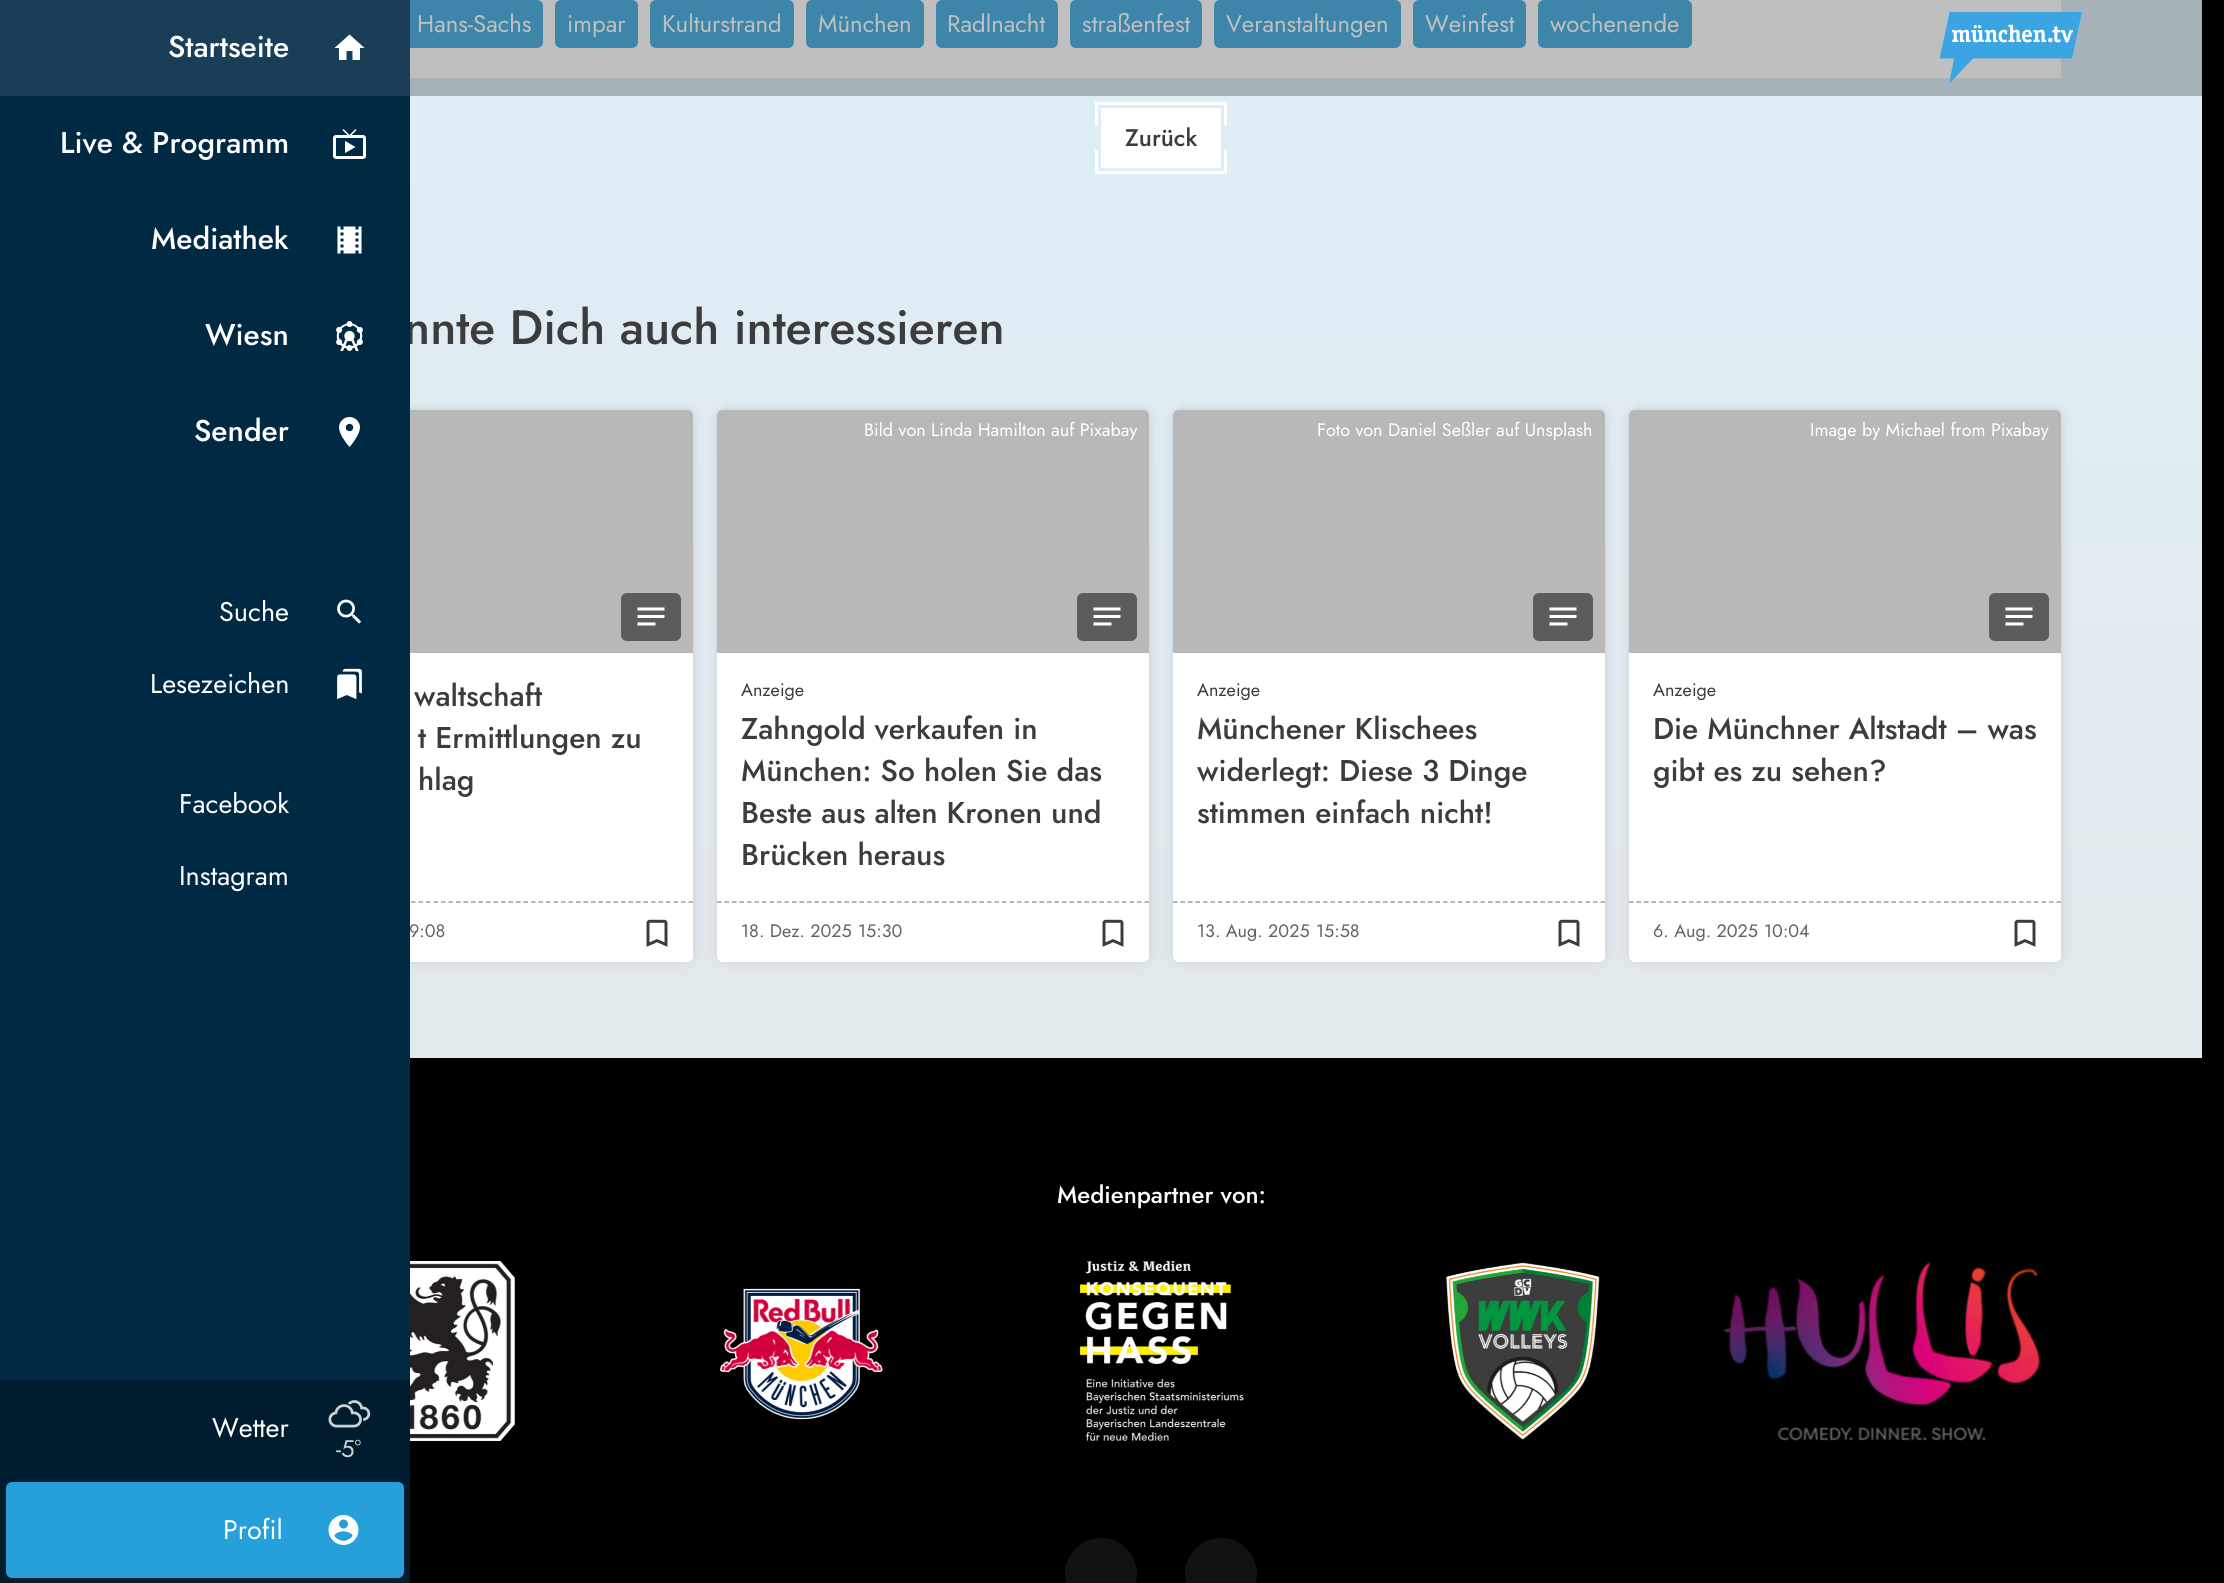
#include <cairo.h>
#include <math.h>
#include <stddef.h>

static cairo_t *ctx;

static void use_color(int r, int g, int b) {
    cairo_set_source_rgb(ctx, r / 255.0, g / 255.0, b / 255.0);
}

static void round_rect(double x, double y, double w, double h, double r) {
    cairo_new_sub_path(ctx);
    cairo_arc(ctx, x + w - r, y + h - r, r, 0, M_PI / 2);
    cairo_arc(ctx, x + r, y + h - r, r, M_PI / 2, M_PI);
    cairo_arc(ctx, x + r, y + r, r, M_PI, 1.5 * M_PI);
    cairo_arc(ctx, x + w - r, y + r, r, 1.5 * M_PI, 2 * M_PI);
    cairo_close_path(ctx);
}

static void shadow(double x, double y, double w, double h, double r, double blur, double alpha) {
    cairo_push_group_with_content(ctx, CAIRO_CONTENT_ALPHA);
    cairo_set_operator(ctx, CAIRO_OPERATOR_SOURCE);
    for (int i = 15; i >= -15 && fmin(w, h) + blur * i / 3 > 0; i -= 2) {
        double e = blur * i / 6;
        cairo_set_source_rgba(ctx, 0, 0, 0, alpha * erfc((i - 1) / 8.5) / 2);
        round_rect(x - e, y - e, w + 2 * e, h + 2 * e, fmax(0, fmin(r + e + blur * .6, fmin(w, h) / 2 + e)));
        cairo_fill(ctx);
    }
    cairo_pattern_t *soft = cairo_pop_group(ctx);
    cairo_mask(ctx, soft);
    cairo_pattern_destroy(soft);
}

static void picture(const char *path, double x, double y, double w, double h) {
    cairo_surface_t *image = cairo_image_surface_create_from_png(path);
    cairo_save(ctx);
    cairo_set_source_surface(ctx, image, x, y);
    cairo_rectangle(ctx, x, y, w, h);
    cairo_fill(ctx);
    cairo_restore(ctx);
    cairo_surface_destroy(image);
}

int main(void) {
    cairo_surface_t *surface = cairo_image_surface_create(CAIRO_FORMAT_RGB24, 2224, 1583);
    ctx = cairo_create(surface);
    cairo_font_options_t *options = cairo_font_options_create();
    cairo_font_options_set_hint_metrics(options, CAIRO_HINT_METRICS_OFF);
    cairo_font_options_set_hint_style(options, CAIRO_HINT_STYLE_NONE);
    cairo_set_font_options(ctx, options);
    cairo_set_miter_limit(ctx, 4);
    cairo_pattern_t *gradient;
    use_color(0, 0, 0);
    cairo_paint(ctx);
    gradient = cairo_pattern_create_linear(1101, 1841, 1101, -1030);
    cairo_pattern_add_color_stop_rgba(gradient, 0, 0.898, 0.898, 0.898, 1);
    cairo_pattern_add_color_stop_rgba(gradient, 1, 0.859, 0.949, 1, 1);
    cairo_set_source(ctx, gradient);
    cairo_pattern_destroy(gradient);
    cairo_rectangle(ctx, 410, 96, 1792, 962);
    cairo_fill(ctx);
    gradient = cairo_pattern_create_linear(1101, 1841, 1101, -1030);
    cairo_pattern_add_color_stop_rgba(gradient, 0, 0.675, 0.675, 0.675, 1);
    cairo_pattern_add_color_stop_rgba(gradient, 1, 0.643, 0.714, 0.749, 1);
    cairo_set_source(ctx, gradient);
    cairo_pattern_destroy(gradient);
    cairo_rectangle(ctx, 410, 0, 1792, 96);
    cairo_fill(ctx);
    use_color(191, 191, 191);
    cairo_rectangle(ctx, 410, 0, 1651, 78);
    cairo_fill(ctx);
    use_color(61, 134, 170);
    round_rect(405, 0, 138, 48, 6);
    cairo_fill(ctx);
    cairo_select_font_face(ctx, "Jost", CAIRO_FONT_SLANT_NORMAL, CAIRO_FONT_WEIGHT_NORMAL);
    cairo_set_font_size(ctx, 24);
    use_color(191, 191, 191);
    cairo_move_to(ctx, 417, 32);
    cairo_show_text(ctx, "Hans-Sachs");
    use_color(61, 134, 170);
    round_rect(555, 0, 83, 48, 6);
    cairo_fill(ctx);
    use_color(191, 191, 191);
    cairo_move_to(ctx, 567, 32);
    cairo_show_text(ctx, "impar");
    use_color(61, 134, 170);
    round_rect(650, 0, 144, 48, 6);
    cairo_fill(ctx);
    use_color(191, 191, 191);
    cairo_move_to(ctx, 662, 32);
    cairo_show_text(ctx, "Kulturstrand");
    use_color(61, 134, 170);
    round_rect(806, 0, 118, 48, 6);
    cairo_fill(ctx);
    use_color(191, 191, 191);
    cairo_move_to(ctx, 818, 32);
    cairo_show_text(ctx, "München");
    use_color(61, 134, 170);
    round_rect(936, 0, 122, 48, 6);
    cairo_fill(ctx);
    use_color(191, 191, 191);
    cairo_move_to(ctx, 947, 32);
    cairo_show_text(ctx, "Radlnacht");
    use_color(61, 134, 170);
    round_rect(1070, 0, 132, 48, 6);
    cairo_fill(ctx);
    use_color(191, 191, 191);
    cairo_move_to(ctx, 1082, 32);
    cairo_show_text(ctx, "straßenfest");
    use_color(61, 134, 170);
    round_rect(1214, 0, 187, 48, 6);
    cairo_fill(ctx);
    use_color(191, 191, 191);
    cairo_move_to(ctx, 1226, 32);
    cairo_show_text(ctx, "Veranstaltungen");
    use_color(61, 134, 170);
    round_rect(1413, 0, 113, 48, 6);
    cairo_fill(ctx);
    use_color(191, 191, 191);
    cairo_move_to(ctx, 1425, 32);
    cairo_show_text(ctx, "Weinfest");
    use_color(61, 134, 170);
    round_rect(1538, 0, 154, 48, 6);
    cairo_fill(ctx);
    use_color(191, 191, 191);
    cairo_move_to(ctx, 1550, 32);
    cairo_show_text(ctx, "wochenende");
    use_color(255, 255, 255);
    cairo_rectangle(ctx, 1095, 102, 132, 3);
    cairo_fill(ctx);
    cairo_rectangle(ctx, 1224, 102, 3, 24);
    cairo_fill(ctx);
    cairo_rectangle(ctx, 1095, 102, 3, 24);
    cairo_fill(ctx);
    cairo_rectangle(ctx, 1101, 108, 120, 60);
    cairo_fill(ctx);
    cairo_select_font_face(ctx, "Jost Medium", CAIRO_FONT_SLANT_NORMAL, CAIRO_FONT_WEIGHT_NORMAL);
    use_color(60, 60, 60);
    cairo_move_to(ctx, 1125, 146);
    cairo_show_text(ctx, "Zurück");
    use_color(255, 255, 255);
    cairo_rectangle(ctx, 1224, 150, 3, 24);
    cairo_fill(ctx);
    cairo_rectangle(ctx, 1095, 171, 132, 3);
    cairo_fill(ctx);
    cairo_rectangle(ctx, 1095, 150, 3, 24);
    cairo_fill(ctx);
    cairo_set_font_size(ctx, 48);
    use_color(60, 60, 60);
    cairo_move_to(ctx, 404, 344);
    cairo_show_text(ctx, "nnte Dich auch interessieren");
    use_color(0, 0, 0);
    shadow(269, 417, 417, 537, 0, 7.5, 0.4);
    use_color(255, 255, 255);
    round_rect(261, 410, 432, 552, 6);
    cairo_fill(ctx);
    cairo_set_source_rgba(ctx, 0, 0, 0, 0.2);
    cairo_new_path(ctx);
    cairo_move_to(ctx, 267, 410);
    cairo_line_to(ctx, 687, 410);
    cairo_curve_to(ctx, 690.5, 410, 693, 412.5, 693, 416);
    cairo_line_to(ctx, 693, 653);
    cairo_line_to(ctx, 261, 653);
    cairo_line_to(ctx, 261, 416);
    cairo_curve_to(ctx, 261, 412.5, 263.5, 410, 267, 410);
    cairo_close_path(ctx);
    cairo_fill(ctx);
    cairo_set_source_rgba(ctx, 0, 0, 0, 0.1);
    cairo_new_path(ctx);
    cairo_move_to(ctx, 267, 410);
    cairo_line_to(ctx, 687, 410);
    cairo_curve_to(ctx, 690.5, 410, 693, 412.5, 693, 416);
    cairo_line_to(ctx, 693, 653);
    cairo_line_to(ctx, 261, 653);
    cairo_line_to(ctx, 261, 416);
    cairo_curve_to(ctx, 261, 412.5, 263.5, 410, 267, 410);
    cairo_close_path(ctx);
    cairo_fill(ctx);
    use_color(92, 92, 92);
    round_rect(621, 593, 60, 48, 6);
    cairo_fill(ctx);
    picture("img1.png", 637, 607, 28, 19);
    cairo_set_font_size(ctx, 30);
    use_color(60, 60, 60);
    cairo_move_to(ctx, 414, 706);
    cairo_show_text(ctx, "waltschaft");
    cairo_move_to(ctx, 418, 748);
    cairo_show_text(ctx, "t Ermittlungen zu");
    cairo_move_to(ctx, 418, 790);
    cairo_show_text(ctx, "hlag");
    cairo_new_path(ctx);
    cairo_move_to(ctx, 261, 902);
    cairo_line_to(ctx, 693, 902);
    use_color(158, 158, 158);
    cairo_set_line_width(ctx, 1.5);
    cairo_set_dash(ctx, (double[]){4.5, 3}, 2, 0);
    cairo_stroke(ctx);
    cairo_select_font_face(ctx, "Jost", CAIRO_FONT_SLANT_NORMAL, CAIRO_FONT_WEIGHT_NORMAL);
    cairo_set_font_size(ctx, 18);
    use_color(99, 99, 99);
    cairo_move_to(ctx, 409, 937);
    cairo_show_text(ctx, "9:08");
    picture("img2.png", 646, 919, 22, 28);
    use_color(0, 0, 0);
    shadow(725, 417, 417, 537, 0, 7.5, 0.4);
    use_color(255, 255, 255);
    round_rect(717, 410, 432, 552, 6);
    cairo_fill(ctx);
    cairo_set_source_rgba(ctx, 0, 0, 0, 0.2);
    cairo_new_path(ctx);
    cairo_move_to(ctx, 723, 410);
    cairo_line_to(ctx, 1143, 410);
    cairo_curve_to(ctx, 1146.5, 410, 1149, 412.5, 1149, 416);
    cairo_line_to(ctx, 1149, 653);
    cairo_line_to(ctx, 717, 653);
    cairo_line_to(ctx, 717, 416);
    cairo_curve_to(ctx, 717, 412.5, 719.5, 410, 723, 410);
    cairo_close_path(ctx);
    cairo_fill(ctx);
    cairo_set_source_rgba(ctx, 0, 0, 0, 0.1);
    cairo_new_path(ctx);
    cairo_move_to(ctx, 723, 410);
    cairo_line_to(ctx, 1143, 410);
    cairo_curve_to(ctx, 1146.5, 410, 1149, 412.5, 1149, 416);
    cairo_line_to(ctx, 1149, 653);
    cairo_line_to(ctx, 717, 653);
    cairo_line_to(ctx, 717, 416);
    cairo_curve_to(ctx, 717, 412.5, 719.5, 410, 723, 410);
    cairo_close_path(ctx);
    cairo_fill(ctx);
    use_color(255, 255, 255);
    cairo_move_to(ctx, 864, 436);
    cairo_show_text(ctx, "Bild von Linda Hamilton auf Pixabay");
    use_color(92, 92, 92);
    round_rect(1077, 593, 60, 48, 6);
    cairo_fill(ctx);
    picture("img1.png", 1093, 607, 28, 19);
    use_color(60, 60, 60);
    cairo_move_to(ctx, 741, 696);
    cairo_show_text(ctx, "Anzeige");
    cairo_select_font_face(ctx, "Jost Medium", CAIRO_FONT_SLANT_NORMAL, CAIRO_FONT_WEIGHT_NORMAL);
    cairo_set_font_size(ctx, 30);
    cairo_move_to(ctx, 741, 739);
    cairo_show_text(ctx, "Zahngold verkaufen in");
    cairo_move_to(ctx, 741, 781);
    cairo_show_text(ctx, "München: So holen Sie das");
    cairo_move_to(ctx, 741, 823);
    cairo_show_text(ctx, "Beste aus alten Kronen und");
    cairo_move_to(ctx, 741, 865);
    cairo_show_text(ctx, "Brücken heraus");
    cairo_new_path(ctx);
    cairo_move_to(ctx, 717, 902);
    cairo_line_to(ctx, 1149, 902);
    use_color(158, 158, 158);
    cairo_stroke(ctx);
    cairo_select_font_face(ctx, "Jost", CAIRO_FONT_SLANT_NORMAL, CAIRO_FONT_WEIGHT_NORMAL);
    cairo_set_font_size(ctx, 18);
    use_color(99, 99, 99);
    cairo_move_to(ctx, 741, 937);
    cairo_show_text(ctx, "18. Dez. 2025");
    cairo_move_to(ctx, 858, 937);
    cairo_show_text(ctx, "15:30");
    picture("img2.png", 1102, 919, 22, 28);
    use_color(0, 0, 0);
    shadow(1181, 417, 417, 537, 0, 7.5, 0.4);
    use_color(255, 255, 255);
    round_rect(1173, 410, 432, 552, 6);
    cairo_fill(ctx);
    cairo_set_source_rgba(ctx, 0, 0, 0, 0.2);
    cairo_new_path(ctx);
    cairo_move_to(ctx, 1179, 410);
    cairo_line_to(ctx, 1599, 410);
    cairo_curve_to(ctx, 1602.5, 410, 1605, 412.5, 1605, 416);
    cairo_line_to(ctx, 1605, 653);
    cairo_line_to(ctx, 1173, 653);
    cairo_line_to(ctx, 1173, 416);
    cairo_curve_to(ctx, 1173, 412.5, 1175.5, 410, 1179, 410);
    cairo_close_path(ctx);
    cairo_fill(ctx);
    cairo_set_source_rgba(ctx, 0, 0, 0, 0.1);
    cairo_new_path(ctx);
    cairo_move_to(ctx, 1179, 410);
    cairo_line_to(ctx, 1599, 410);
    cairo_curve_to(ctx, 1602.5, 410, 1605, 412.5, 1605, 416);
    cairo_line_to(ctx, 1605, 653);
    cairo_line_to(ctx, 1173, 653);
    cairo_line_to(ctx, 1173, 416);
    cairo_curve_to(ctx, 1173, 412.5, 1175.5, 410, 1179, 410);
    cairo_close_path(ctx);
    cairo_fill(ctx);
    use_color(255, 255, 255);
    cairo_move_to(ctx, 1317, 436);
    cairo_show_text(ctx, "Foto von Daniel Seßler auf Unsplash");
    use_color(92, 92, 92);
    round_rect(1533, 593, 60, 48, 6);
    cairo_fill(ctx);
    picture("img1.png", 1549, 607, 28, 19);
    use_color(60, 60, 60);
    cairo_move_to(ctx, 1197, 696);
    cairo_show_text(ctx, "Anzeige");
    cairo_select_font_face(ctx, "Jost Medium", CAIRO_FONT_SLANT_NORMAL, CAIRO_FONT_WEIGHT_NORMAL);
    cairo_set_font_size(ctx, 30);
    cairo_move_to(ctx, 1197, 739);
    cairo_show_text(ctx, "Münchener Klischees");
    cairo_move_to(ctx, 1197, 781);
    cairo_show_text(ctx, "widerlegt: Diese 3 Dinge");
    cairo_move_to(ctx, 1197, 823);
    cairo_show_text(ctx, "stimmen einfach nicht!");
    cairo_new_path(ctx);
    cairo_move_to(ctx, 1173, 902);
    cairo_line_to(ctx, 1605, 902);
    use_color(158, 158, 158);
    cairo_stroke(ctx);
    cairo_select_font_face(ctx, "Jost", CAIRO_FONT_SLANT_NORMAL, CAIRO_FONT_WEIGHT_NORMAL);
    cairo_set_font_size(ctx, 18);
    use_color(99, 99, 99);
    cairo_move_to(ctx, 1197, 937);
    cairo_show_text(ctx, "13. Aug. 2025");
    cairo_move_to(ctx, 1316, 937);
    cairo_show_text(ctx, "15:58");
    picture("img2.png", 1558, 919, 22, 28);
    use_color(0, 0, 0);
    shadow(1637, 417, 417, 537, 0, 7.5, 0.4);
    use_color(255, 255, 255);
    round_rect(1629, 410, 432, 552, 6);
    cairo_fill(ctx);
    cairo_set_source_rgba(ctx, 0, 0, 0, 0.2);
    cairo_new_path(ctx);
    cairo_move_to(ctx, 1635, 410);
    cairo_line_to(ctx, 2055, 410);
    cairo_curve_to(ctx, 2058.5, 410, 2061, 412.5, 2061, 416);
    cairo_line_to(ctx, 2061, 653);
    cairo_line_to(ctx, 1629, 653);
    cairo_line_to(ctx, 1629, 416);
    cairo_curve_to(ctx, 1629, 412.5, 1631.5, 410, 1635, 410);
    cairo_close_path(ctx);
    cairo_fill(ctx);
    cairo_set_source_rgba(ctx, 0, 0, 0, 0.1);
    cairo_new_path(ctx);
    cairo_move_to(ctx, 1635, 410);
    cairo_line_to(ctx, 2055, 410);
    cairo_curve_to(ctx, 2058.5, 410, 2061, 412.5, 2061, 416);
    cairo_line_to(ctx, 2061, 653);
    cairo_line_to(ctx, 1629, 653);
    cairo_line_to(ctx, 1629, 416);
    cairo_curve_to(ctx, 1629, 412.5, 1631.5, 410, 1635, 410);
    cairo_close_path(ctx);
    cairo_fill(ctx);
    use_color(255, 255, 255);
    cairo_move_to(ctx, 1810, 436);
    cairo_show_text(ctx, "Image by Michael from Pixabay");
    use_color(92, 92, 92);
    round_rect(1989, 593, 60, 48, 6);
    cairo_fill(ctx);
    picture("img1.png", 2005, 607, 28, 19);
    use_color(60, 60, 60);
    cairo_move_to(ctx, 1653, 696);
    cairo_show_text(ctx, "Anzeige");
    cairo_select_font_face(ctx, "Jost Medium", CAIRO_FONT_SLANT_NORMAL, CAIRO_FONT_WEIGHT_NORMAL);
    cairo_set_font_size(ctx, 30);
    cairo_move_to(ctx, 1653, 739);
    cairo_show_text(ctx, "Die Münchner Altstadt – was");
    cairo_move_to(ctx, 1653, 781);
    cairo_show_text(ctx, "gibt es zu sehen?");
    cairo_new_path(ctx);
    cairo_move_to(ctx, 1629, 902);
    cairo_line_to(ctx, 2061, 902);
    use_color(158, 158, 158);
    cairo_stroke(ctx);
    cairo_select_font_face(ctx, "Jost", CAIRO_FONT_SLANT_NORMAL, CAIRO_FONT_WEIGHT_NORMAL);
    cairo_set_font_size(ctx, 18);
    use_color(99, 99, 99);
    cairo_move_to(ctx, 1653, 937);
    cairo_show_text(ctx, "6. Aug. 2025");
    cairo_move_to(ctx, 1764, 937);
    cairo_show_text(ctx, "10:04");
    picture("img2.png", 2014, 919, 22, 28);
    cairo_select_font_face(ctx, "Jost Medium", CAIRO_FONT_SLANT_NORMAL, CAIRO_FONT_WEIGHT_NORMAL);
    cairo_set_font_size(ctx, 24);
    use_color(255, 255, 255);
    cairo_move_to(ctx, 1057, 1203);
    cairo_show_text(ctx, "Medienpartner von:");
    picture("img3.png", 410, 1261, 105, 180);
    picture("img4.png", 720, 1288, 163, 132);
    picture("img5.png", 1080, 1261, 164, 180);
    picture("img6.png", 1445, 1262, 155, 178);
    picture("img7.png", 1723, 1261, 318, 180);
    use_color(18, 18, 18);
    cairo_arc(ctx, 1101, 1574, 36, 0, 2 * M_PI);
    cairo_fill(ctx);
    cairo_arc(ctx, 1221, 1574, 36, 0, 2 * M_PI);
    cairo_fill(ctx);
    use_color(0, 41, 68);
    cairo_rectangle(ctx, 0, 96, 410, 1284);
    cairo_fill(ctx);
    cairo_save(ctx);
    cairo_rectangle(ctx, 0, 0, 410, 96);
    cairo_clip(ctx);
    use_color(26, 62, 87);
    cairo_arc(ctx, 350, 48, 504, 0, 2 * M_PI);
    cairo_fill(ctx);
    cairo_restore(ctx);
    cairo_set_font_size(ctx, 30);
    use_color(255, 255, 255);
    cairo_move_to(ctx, 168, 57);
    cairo_show_text(ctx, "Startseite");
    cairo_new_path(ctx);
    cairo_move_to(ctx, 346.5, 60);
    cairo_line_to(ctx, 339, 60);
    cairo_line_to(ctx, 339, 48);
    cairo_line_to(ctx, 334.5, 48);
    cairo_line_to(ctx, 349.5, 34.5);
    cairo_line_to(ctx, 364.5, 48);
    cairo_line_to(ctx, 360, 48);
    cairo_line_to(ctx, 360, 60);
    cairo_line_to(ctx, 352.5, 60);
    cairo_line_to(ctx, 352.5, 51);
    cairo_line_to(ctx, 346.5, 51);
    cairo_close_path(ctx);
    cairo_fill(ctx);
    cairo_move_to(ctx, 60, 153);
    cairo_show_text(ctx, "Live & Programm");
    picture("img8.png", 332, 129, 35, 30);
    cairo_move_to(ctx, 151, 249);
    cairo_show_text(ctx, "Mediathek");
    picture("img9.png", 337, 226, 25, 28);
    cairo_move_to(ctx, 205, 345);
    cairo_show_text(ctx, "Wiesn");
    picture("img10.png", 336, 321, 27, 30);
    cairo_move_to(ctx, 194, 441);
    cairo_show_text(ctx, "Sender");
    picture("img11.png", 339, 417, 21, 30);
    cairo_select_font_face(ctx, "Jost", CAIRO_FONT_SLANT_NORMAL, CAIRO_FONT_WEIGHT_NORMAL);
    cairo_set_font_size(ctx, 27);
    cairo_move_to(ctx, 219, 621);
    cairo_show_text(ctx, "Suche");
    picture("img12.png", 337, 599, 25, 25);
    cairo_move_to(ctx, 150, 693);
    cairo_show_text(ctx, "Lesezeichen");
    picture("img13.png", 337, 668, 25, 32);
    cairo_move_to(ctx, 179, 813);
    cairo_show_text(ctx, "Facebook");
    cairo_move_to(ctx, 179, 885);
    cairo_show_text(ctx, "Instagram");
    use_color(0, 29, 48);
    cairo_rectangle(ctx, 0, 1380, 410, 203);
    cairo_fill(ctx);
    use_color(255, 255, 255);
    cairo_move_to(ctx, 212, 1437);
    cairo_show_text(ctx, "Wetter");
    picture("img14.png", 328, 1400, 43, 28);
    cairo_set_font_size(ctx, 24);
    use_color(204, 210, 214);
    cairo_move_to(ctx, 336, 1457);
    cairo_show_text(ctx, "-5°");
    use_color(37, 160, 219);
    round_rect(6, 1482, 398, 96, 6);
    cairo_fill(ctx);
    cairo_set_font_size(ctx, 27);
    use_color(255, 255, 255);
    cairo_move_to(ctx, 223, 1539);
    cairo_show_text(ctx, "Profil");
    picture("img15.png", 328, 1515, 31, 30);
    picture("img16.png", 1940, 12, 142, 72);
    cairo_surface_write_to_png(surface, "result.png");
    cairo_font_options_destroy(options);
    cairo_destroy(ctx);
    cairo_surface_destroy(surface);
    return 0;
}
